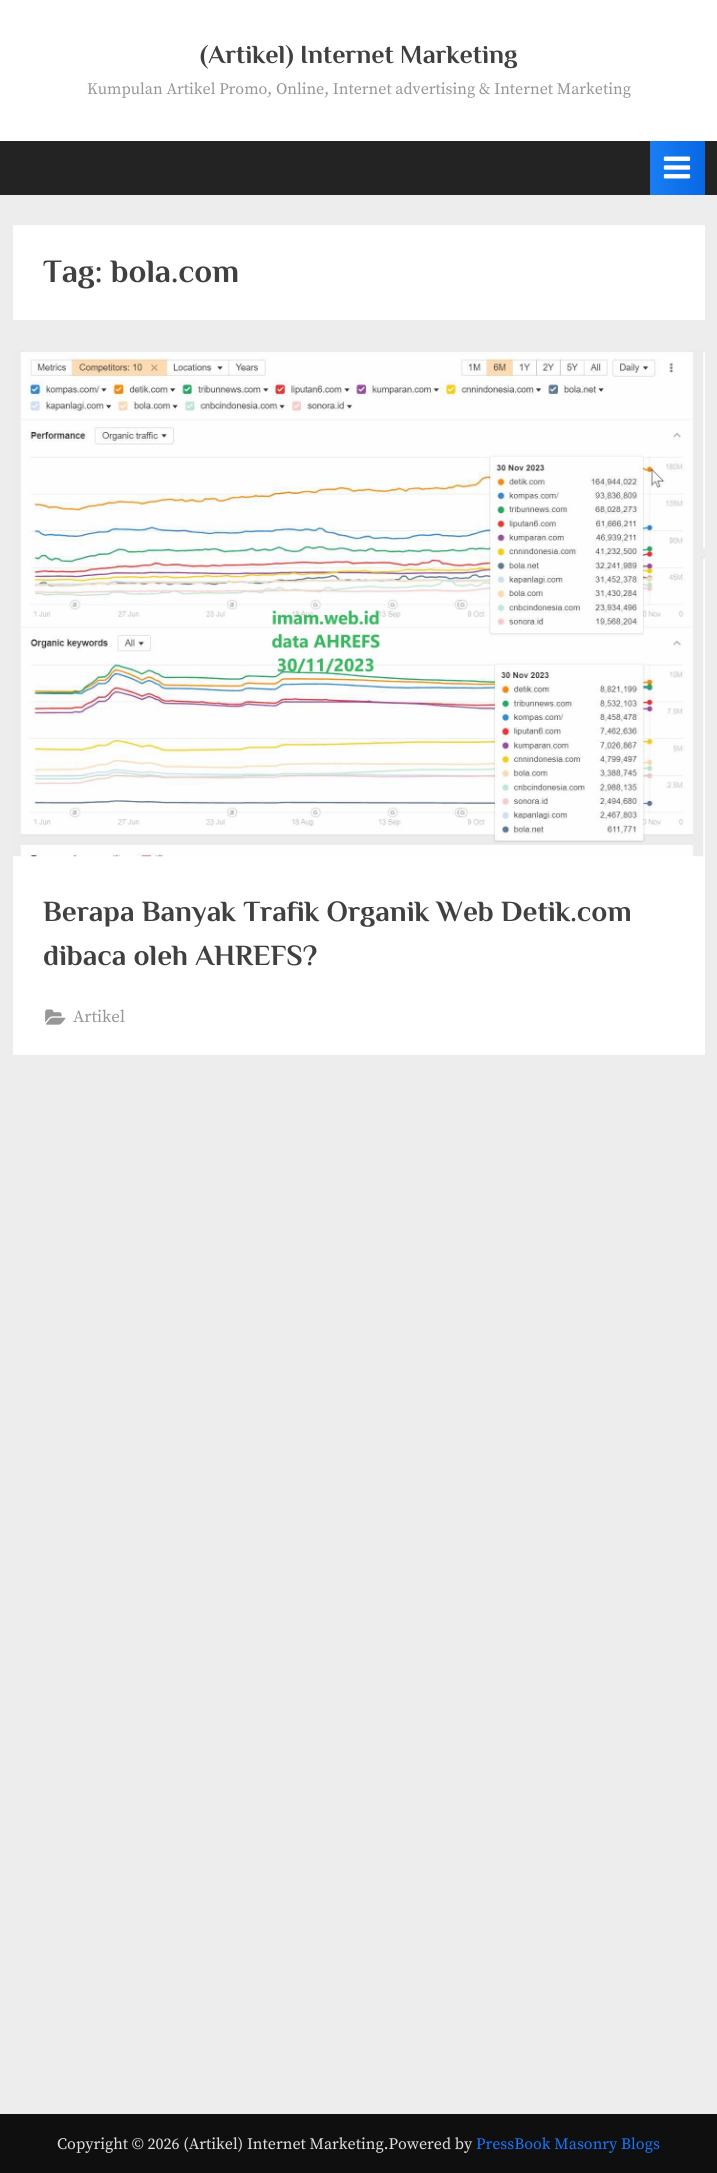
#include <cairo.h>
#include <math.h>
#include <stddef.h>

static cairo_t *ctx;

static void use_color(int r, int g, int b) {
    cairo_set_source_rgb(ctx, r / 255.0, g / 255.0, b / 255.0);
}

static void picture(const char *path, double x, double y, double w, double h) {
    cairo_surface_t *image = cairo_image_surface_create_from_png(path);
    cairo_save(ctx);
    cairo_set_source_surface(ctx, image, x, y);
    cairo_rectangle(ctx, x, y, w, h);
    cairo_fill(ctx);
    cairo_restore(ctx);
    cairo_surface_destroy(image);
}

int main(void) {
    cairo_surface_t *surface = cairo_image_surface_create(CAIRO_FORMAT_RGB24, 717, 2173);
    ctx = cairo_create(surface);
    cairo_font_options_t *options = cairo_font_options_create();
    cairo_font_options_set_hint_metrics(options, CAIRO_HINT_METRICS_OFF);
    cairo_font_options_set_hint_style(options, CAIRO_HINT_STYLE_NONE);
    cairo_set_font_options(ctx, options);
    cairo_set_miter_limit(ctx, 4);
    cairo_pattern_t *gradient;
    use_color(237, 237, 237);
    cairo_paint(ctx);
    use_color(255, 255, 255);
    cairo_rectangle(ctx, 0, 0, 717, 141);
    cairo_fill(ctx);
    cairo_select_font_face(ctx, "Philosopher", CAIRO_FONT_SLANT_NORMAL, CAIRO_FONT_WEIGHT_BOLD);
    cairo_set_font_size(ctx, 26);
    use_color(64, 64, 64);
    cairo_move_to(ctx, 200, 63);
    cairo_show_text(ctx, "(Artikel) Internet Marketing");
    cairo_select_font_face(ctx, "Source Serif Pro", CAIRO_FONT_SLANT_NORMAL, CAIRO_FONT_WEIGHT_NORMAL);
    cairo_set_font_size(ctx, 16);
    use_color(151, 151, 151);
    cairo_move_to(ctx, 87, 94);
    cairo_show_text(ctx, "Kumpulan Artikel Promo, Online, Internet advertising & Internet Marketing");
    use_color(35, 35, 35);
    cairo_rectangle(ctx, 0, 141, 717, 54);
    cairo_fill(ctx);
    gradient = cairo_pattern_create_linear(553, 168, 653, 168);
    cairo_pattern_add_color_stop_rgba(gradient, 0, 0.094, 0.49, 0.949, 1);
    cairo_pattern_add_color_stop_rgba(gradient, 0.51, 0.035, 0.408, 0.898, 1);
    cairo_pattern_add_color_stop_rgba(gradient, 1, 0.094, 0.49, 0.949, 1);
    cairo_set_source(ctx, gradient);
    cairo_pattern_destroy(gradient);
    cairo_rectangle(ctx, 650, 141, 3, 54);
    cairo_fill(ctx);
    gradient = cairo_pattern_create_linear(653, 168, 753, 168);
    cairo_pattern_add_color_stop_rgba(gradient, 0, 0.094, 0.49, 0.949, 1);
    cairo_pattern_add_color_stop_rgba(gradient, 0.51, 0.035, 0.408, 0.898, 1);
    cairo_pattern_add_color_stop_rgba(gradient, 1, 0.094, 0.49, 0.949, 1);
    cairo_set_source(ctx, gradient);
    cairo_pattern_destroy(gradient);
    cairo_rectangle(ctx, 653, 141, 52, 54);
    cairo_fill(ctx);
    picture("img1.png", 663, 156, 28, 23);
    use_color(255, 255, 255);
    cairo_rectangle(ctx, 13, 225, 692, 95);
    cairo_fill(ctx);
    cairo_select_font_face(ctx, "Philosopher", CAIRO_FONT_SLANT_NORMAL, CAIRO_FONT_WEIGHT_BOLD);
    cairo_set_font_size(ctx, 32.5);
    use_color(64, 64, 64);
    cairo_move_to(ctx, 43, 282);
    cairo_show_text(ctx, "Tag: bola.com");
    use_color(255, 255, 255);
    cairo_rectangle(ctx, 13, 856, 692, 199);
    cairo_fill(ctx);
    picture("img2.png", 13, 350, 692, 507);
    cairo_set_font_size(ctx, 29.2);
    use_color(64, 64, 64);
    cairo_move_to(ctx, 43, 921);
    cairo_show_text(ctx, "Berapa Banyak Trafik Organik Web Detik.com");
    cairo_move_to(ctx, 43, 965);
    cairo_show_text(ctx, "dibaca oleh AHREFS?");
    picture("img3.png", 45, 1009, 21, 16);
    cairo_select_font_face(ctx, "Source Serif Pro", CAIRO_FONT_SLANT_NORMAL, CAIRO_FONT_WEIGHT_NORMAL);
    cairo_set_font_size(ctx, 17);
    use_color(151, 151, 151);
    cairo_move_to(ctx, 73, 1022);
    cairo_show_text(ctx, "Artikel");
    use_color(15, 15, 15);
    cairo_rectangle(ctx, 0, 2114, 717, 59);
    cairo_fill(ctx);
    cairo_set_font_size(ctx, 16);
    use_color(225, 225, 225);
    cairo_move_to(ctx, 57, 2149);
    cairo_show_text(ctx, "Copyright © 2026 (Artikel) Internet Marketing.Powered by");
    use_color(25, 116, 252);
    cairo_move_to(ctx, 476, 2149);
    cairo_show_text(ctx, "PressBook Masonry Blogs");
    cairo_surface_write_to_png(surface, "result.png");
    cairo_font_options_destroy(options);
    cairo_destroy(ctx);
    cairo_surface_destroy(surface);
    return 0;
}
